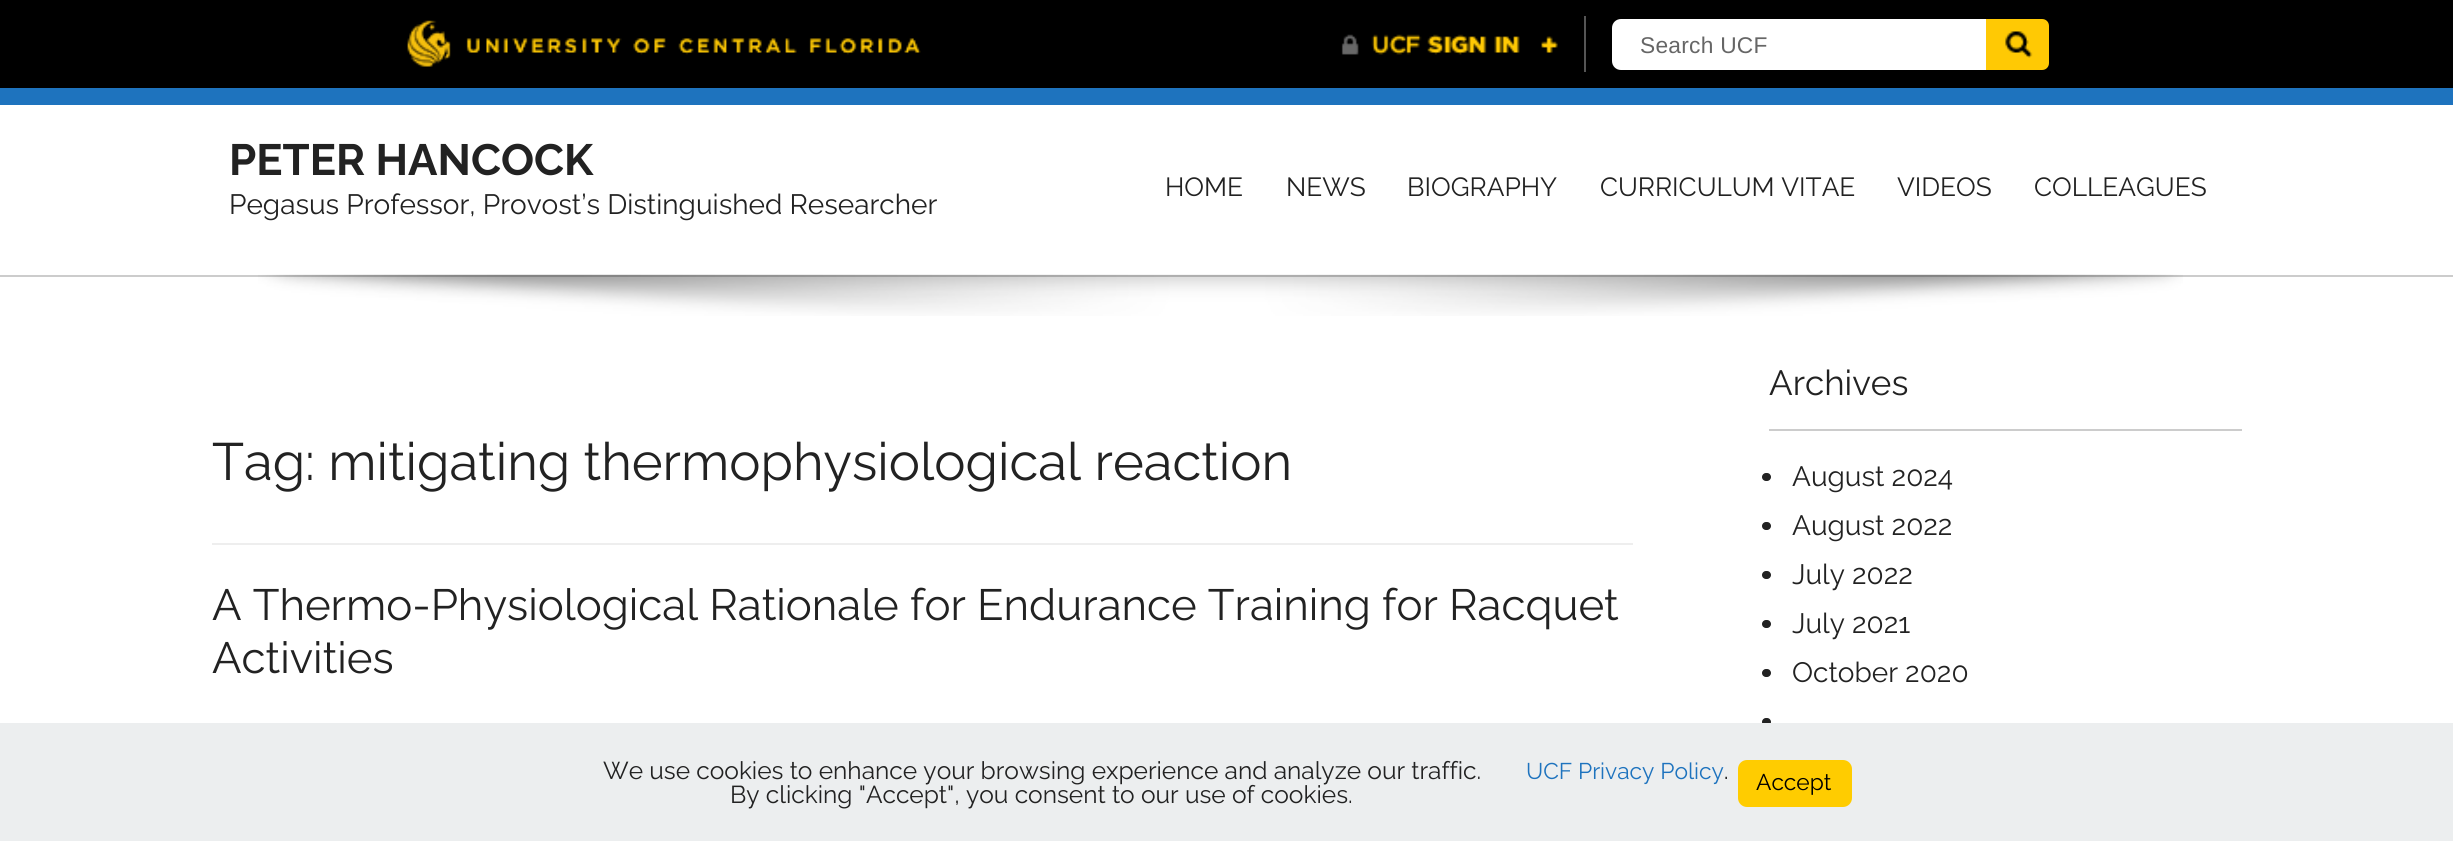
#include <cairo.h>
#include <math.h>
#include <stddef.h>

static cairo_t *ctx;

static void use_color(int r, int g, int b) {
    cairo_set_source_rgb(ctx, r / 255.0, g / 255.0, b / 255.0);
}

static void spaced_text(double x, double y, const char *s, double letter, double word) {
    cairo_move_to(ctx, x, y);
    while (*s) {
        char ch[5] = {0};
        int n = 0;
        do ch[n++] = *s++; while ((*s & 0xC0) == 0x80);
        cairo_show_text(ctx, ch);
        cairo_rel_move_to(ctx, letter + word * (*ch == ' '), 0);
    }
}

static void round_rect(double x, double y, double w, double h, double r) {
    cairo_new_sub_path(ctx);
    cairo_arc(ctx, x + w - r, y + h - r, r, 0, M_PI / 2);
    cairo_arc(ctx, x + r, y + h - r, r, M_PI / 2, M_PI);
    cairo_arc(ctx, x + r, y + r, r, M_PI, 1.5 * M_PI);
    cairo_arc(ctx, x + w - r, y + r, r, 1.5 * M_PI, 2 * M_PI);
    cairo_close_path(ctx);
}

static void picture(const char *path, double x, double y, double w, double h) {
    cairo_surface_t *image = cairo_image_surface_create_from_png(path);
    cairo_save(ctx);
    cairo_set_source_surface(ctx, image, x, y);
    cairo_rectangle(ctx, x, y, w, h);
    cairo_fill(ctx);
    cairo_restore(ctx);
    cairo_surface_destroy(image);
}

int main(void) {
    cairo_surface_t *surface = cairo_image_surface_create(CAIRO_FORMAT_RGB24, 2453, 841);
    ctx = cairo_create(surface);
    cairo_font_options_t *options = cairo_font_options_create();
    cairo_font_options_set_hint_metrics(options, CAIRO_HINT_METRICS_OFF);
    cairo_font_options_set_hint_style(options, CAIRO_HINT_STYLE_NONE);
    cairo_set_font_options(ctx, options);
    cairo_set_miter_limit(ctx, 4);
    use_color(255, 255, 255);
    cairo_paint(ctx);
    use_color(0, 0, 0);
    cairo_rectangle(ctx, 0, 0, 2453, 88);
    cairo_fill(ctx);
    picture("img1.png", 407, 20, 514, 47);
    picture("img2.png", 1341, 34, 217, 21);
    use_color(85, 85, 85);
    cairo_rectangle(ctx, 1584, 16, 2, 56);
    cairo_fill(ctx);
    use_color(255, 255, 255);
    cairo_new_path(ctx);
    cairo_move_to(ctx, 1621, 20);
    cairo_line_to(ctx, 2005, 20);
    cairo_line_to(ctx, 2005, 69);
    cairo_line_to(ctx, 1621, 69);
    cairo_curve_to(ctx, 1616.5, 69, 1613, 65.5, 1613, 61);
    cairo_line_to(ctx, 1613, 28);
    cairo_curve_to(ctx, 1613, 23.5, 1616.5, 20, 1621, 20);
    cairo_close_path(ctx);
    cairo_fill_preserve(ctx);
    cairo_stroke(ctx);
    cairo_select_font_face(ctx, "Liberation Sans", CAIRO_FONT_SLANT_NORMAL, CAIRO_FONT_WEIGHT_NORMAL);
    cairo_set_font_size(ctx, 22.75);
    use_color(102, 102, 102);
    spaced_text(1640, 53, "Search UCF", 0.25, 0);
    use_color(255, 201, 4);
    cairo_new_path(ctx);
    cairo_move_to(ctx, 1986, 19);
    cairo_line_to(ctx, 2042, 19);
    cairo_curve_to(ctx, 2046, 19, 2049, 22, 2049, 26);
    cairo_line_to(ctx, 2049, 63);
    cairo_curve_to(ctx, 2049, 67, 2046, 70, 2042, 70);
    cairo_line_to(ctx, 1986, 70);
    cairo_close_path(ctx);
    cairo_fill(ctx);
    picture("img3.png", 2005, 31, 28, 27);
    use_color(30, 115, 190);
    cairo_rectangle(ctx, 0, 88, 2453, 17);
    cairo_fill(ctx);
    use_color(204, 204, 204);
    cairo_rectangle(ctx, 0, 275, 2453, 2);
    cairo_fill(ctx);
    cairo_select_font_face(ctx, "Raleway", CAIRO_FONT_SLANT_NORMAL, CAIRO_FONT_WEIGHT_BOLD);
    cairo_set_font_size(ctx, 43.75);
    use_color(34, 34, 34);
    cairo_move_to(ctx, 229, 175);
    cairo_show_text(ctx, "PETER HANCOCK");
    cairo_select_font_face(ctx, "Raleway", CAIRO_FONT_SLANT_NORMAL, CAIRO_FONT_WEIGHT_NORMAL);
    cairo_set_font_size(ctx, 28);
    cairo_move_to(ctx, 229, 214);
    cairo_show_text(ctx, "Pegasus Professor, Provost’s Distinguished Researcher");
    cairo_set_font_size(ctx, 26.25);
    cairo_move_to(ctx, 1165, 196);
    cairo_show_text(ctx, "HOME");
    cairo_move_to(ctx, 1286, 196);
    cairo_show_text(ctx, "NEWS");
    cairo_move_to(ctx, 1407, 196);
    cairo_show_text(ctx, "BIOGRAPHY");
    cairo_move_to(ctx, 1600, 196);
    cairo_show_text(ctx, "CURRICULUM VITAE");
    cairo_move_to(ctx, 1897, 196);
    cairo_show_text(ctx, "VIDEOS");
    cairo_move_to(ctx, 2034, 196);
    cairo_show_text(ctx, "COLLEAGUES");
    picture("img4.png", 258, 274, 1925, 42);
    use_color(238, 238, 238);
    cairo_rectangle(ctx, 212, 543, 1421, 2);
    cairo_fill(ctx);
    cairo_set_font_size(ctx, 52.5);
    use_color(34, 34, 34);
    cairo_move_to(ctx, 212, 480);
    cairo_show_text(ctx, "Tag: mitigating thermophysiological reaction");
    cairo_set_font_size(ctx, 43.75);
    cairo_move_to(ctx, 212, 620);
    cairo_show_text(ctx, "A Thermo-Physiological Rationale for Endurance Training for Racquet");
    cairo_move_to(ctx, 212, 673);
    cairo_show_text(ctx, "Activities");
    use_color(204, 204, 204);
    cairo_rectangle(ctx, 1769, 429, 473, 2);
    cairo_fill(ctx);
    cairo_set_font_size(ctx, 35);
    use_color(34, 34, 34);
    cairo_move_to(ctx, 1769, 395);
    cairo_show_text(ctx, "Archives");
    round_rect(1762, 473, 9, 8, 4);
    cairo_fill(ctx);
    cairo_set_font_size(ctx, 28);
    cairo_move_to(ctx, 1792, 486);
    cairo_show_text(ctx, "August 2024");
    round_rect(1762, 522, 9, 8, 4);
    cairo_fill(ctx);
    cairo_move_to(ctx, 1792, 535);
    cairo_show_text(ctx, "August 2022");
    round_rect(1762, 571, 9, 8, 4);
    cairo_fill(ctx);
    cairo_move_to(ctx, 1792, 584);
    cairo_show_text(ctx, "July 2022");
    round_rect(1762, 620, 9, 8, 4);
    cairo_fill(ctx);
    cairo_move_to(ctx, 1792, 633);
    cairo_show_text(ctx, "July 2021");
    round_rect(1762, 669, 9, 8, 4);
    cairo_fill(ctx);
    cairo_move_to(ctx, 1792, 682);
    cairo_show_text(ctx, "October 2020");
    round_rect(1762, 718, 9, 8, 4);
    cairo_fill(ctx);
    use_color(236, 238, 239);
    cairo_rectangle(ctx, 0, 723, 2453, 118);
    cairo_fill(ctx);
    cairo_set_font_size(ctx, 24.5);
    use_color(34, 34, 34);
    cairo_move_to(ctx, 603, 779);
    cairo_show_text(ctx, "We use cookies to enhance your browsing experience and analyze our traffic.");
    cairo_move_to(ctx, 730, 803);
    cairo_show_text(ctx, "By clicking \"Accept\", you consent to our use of cookies.");
    cairo_set_font_size(ctx, 22.75);
    use_color(30, 115, 190);
    cairo_move_to(ctx, 1526, 779);
    cairo_show_text(ctx, "UCF Privacy Policy");
    use_color(0, 0, 0);
    cairo_move_to(ctx, 1724, 779);
    cairo_show_text(ctx, ".");
    use_color(255, 204, 0);
    round_rect(1739, 761, 112, 45, 8);
    cairo_fill_preserve(ctx);
    cairo_stroke(ctx);
    use_color(0, 0, 0);
    cairo_move_to(ctx, 1756, 790);
    cairo_show_text(ctx, "Accept");
    cairo_surface_write_to_png(surface, "result.png");
    cairo_font_options_destroy(options);
    cairo_destroy(ctx);
    cairo_surface_destroy(surface);
    return 0;
}
